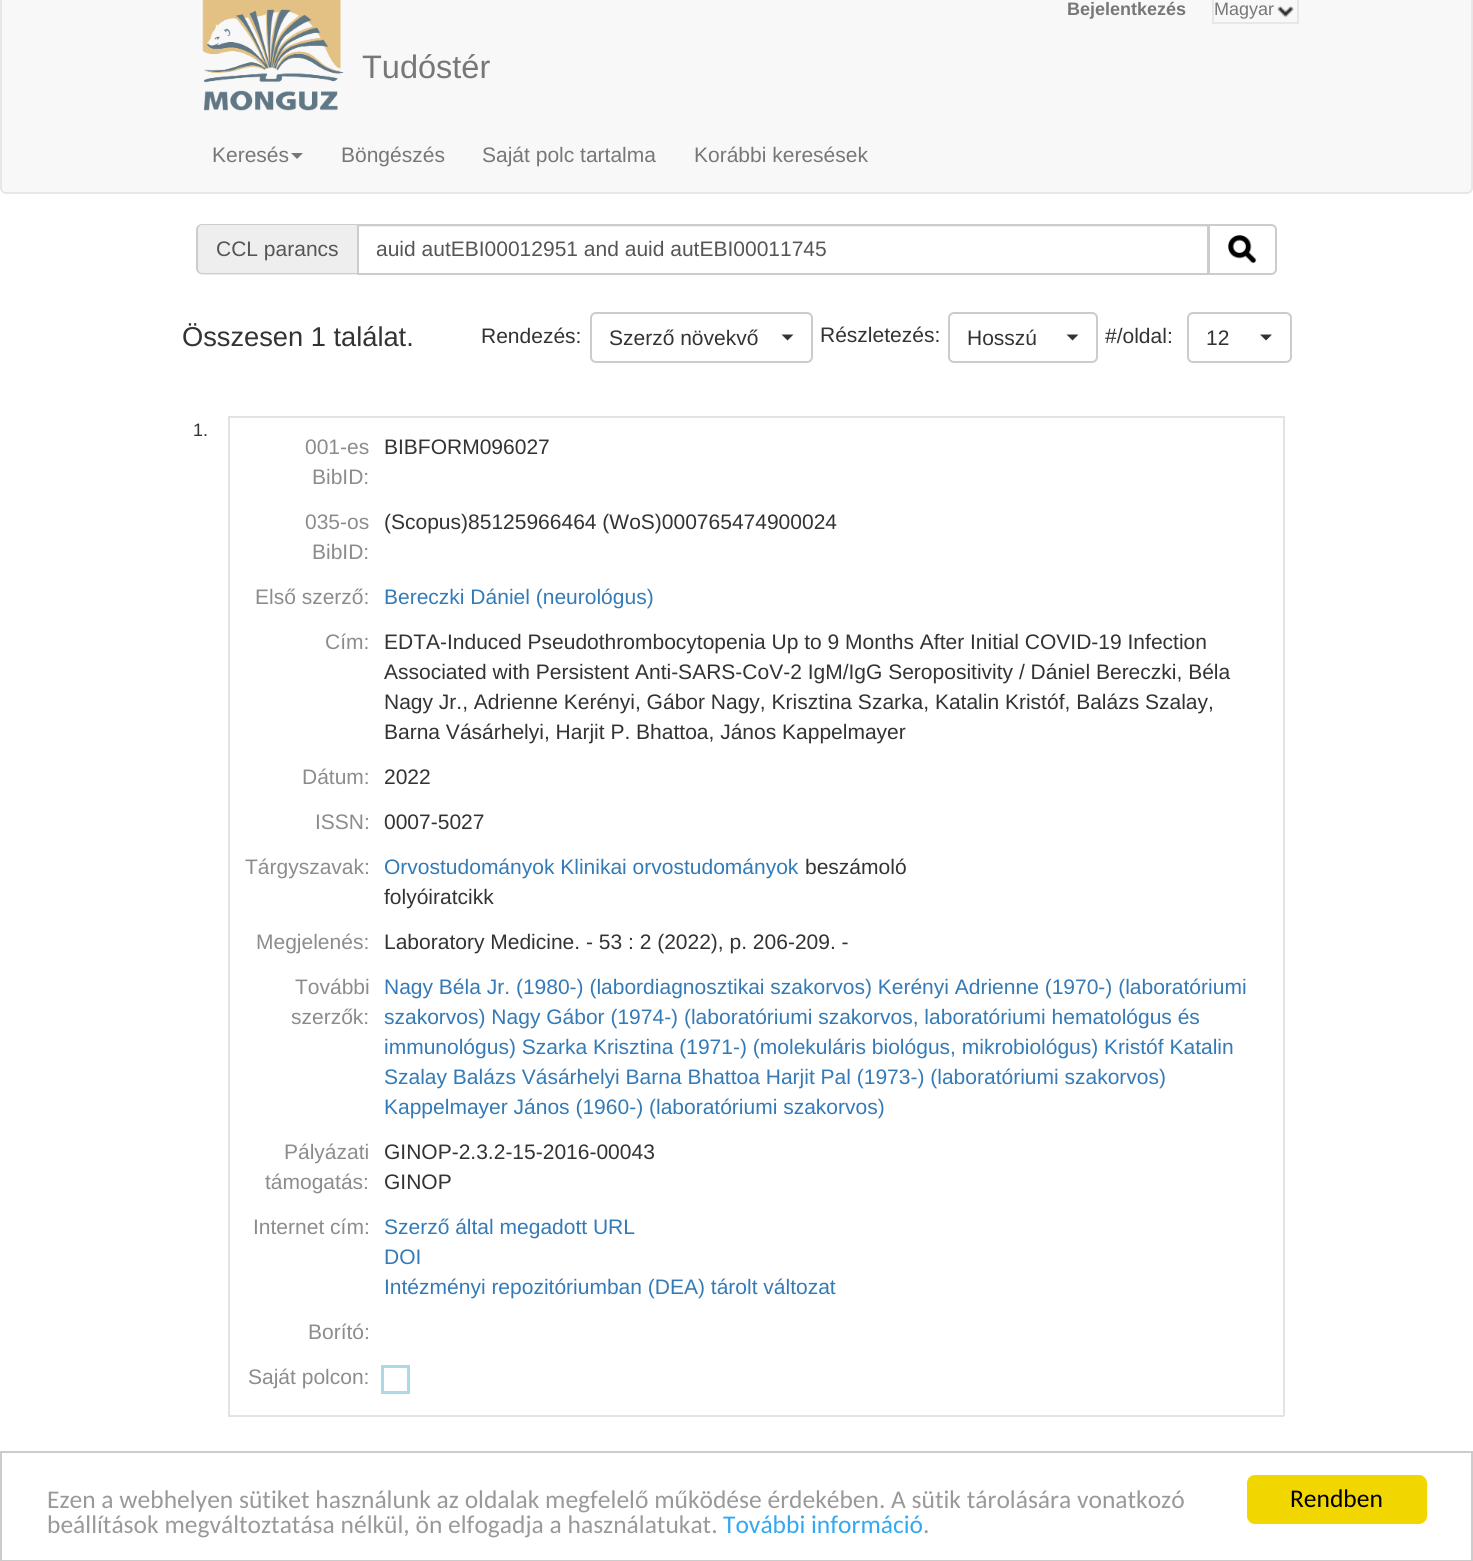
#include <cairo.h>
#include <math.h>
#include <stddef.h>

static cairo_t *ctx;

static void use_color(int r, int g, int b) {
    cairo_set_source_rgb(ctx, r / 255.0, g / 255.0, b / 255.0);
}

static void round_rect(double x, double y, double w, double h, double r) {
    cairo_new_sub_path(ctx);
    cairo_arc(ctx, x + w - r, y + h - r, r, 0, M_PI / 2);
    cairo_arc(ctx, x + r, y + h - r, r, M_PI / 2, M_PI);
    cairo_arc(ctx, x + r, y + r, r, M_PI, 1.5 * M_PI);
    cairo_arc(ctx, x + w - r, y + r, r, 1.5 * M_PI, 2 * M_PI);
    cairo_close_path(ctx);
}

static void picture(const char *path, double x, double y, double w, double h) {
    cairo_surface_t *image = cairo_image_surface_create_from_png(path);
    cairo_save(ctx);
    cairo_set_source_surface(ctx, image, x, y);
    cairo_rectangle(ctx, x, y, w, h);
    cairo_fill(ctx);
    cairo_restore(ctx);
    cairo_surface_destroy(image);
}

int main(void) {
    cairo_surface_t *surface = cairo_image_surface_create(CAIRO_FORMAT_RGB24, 1473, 1561);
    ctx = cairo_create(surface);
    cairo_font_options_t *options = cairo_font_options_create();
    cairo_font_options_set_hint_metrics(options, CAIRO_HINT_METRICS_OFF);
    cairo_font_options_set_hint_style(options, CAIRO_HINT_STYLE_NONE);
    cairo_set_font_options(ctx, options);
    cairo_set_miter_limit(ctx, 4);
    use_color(255, 255, 255);
    cairo_paint(ctx);
    use_color(248, 248, 248);
    round_rect(1, -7, 1471, 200, 5);
    cairo_fill_preserve(ctx);
    use_color(231, 231, 231);
    cairo_stroke(ctx);
    cairo_select_font_face(ctx, "Liberation Sans", CAIRO_FONT_SLANT_NORMAL, CAIRO_FONT_WEIGHT_BOLD);
    cairo_set_font_size(ctx, 18);
    use_color(119, 119, 119);
    cairo_move_to(ctx, 1067, 15);
    cairo_show_text(ctx, "Bejelentkezés");
    picture("img1.png", 1277, 5, 17, 12);
    cairo_rectangle(ctx, 1213, -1, 85, 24);
    use_color(231, 231, 231);
    cairo_stroke(ctx);
    cairo_select_font_face(ctx, "Liberation Sans", CAIRO_FONT_SLANT_NORMAL, CAIRO_FONT_WEIGHT_NORMAL);
    use_color(119, 119, 119);
    cairo_move_to(ctx, 1214, 15);
    cairo_show_text(ctx, "Magyar");
    picture("img2.png", 202, 0, 142, 111);
    cairo_set_font_size(ctx, 32.5);
    cairo_move_to(ctx, 362, 78);
    cairo_show_text(ctx, "Tudóstér");
    cairo_set_font_size(ctx, 21);
    cairo_move_to(ctx, 212, 162);
    cairo_show_text(ctx, "Keresés");
    cairo_new_path(ctx);
    cairo_move_to(ctx, 291, 153);
    cairo_line_to(ctx, 303, 153);
    cairo_line_to(ctx, 297, 159);
    cairo_close_path(ctx);
    cairo_fill(ctx);
    cairo_move_to(ctx, 341, 162);
    cairo_show_text(ctx, "Böngészés");
    cairo_move_to(ctx, 482, 162);
    cairo_show_text(ctx, "Saját polc tartalma");
    cairo_move_to(ctx, 694, 162);
    cairo_show_text(ctx, "Korábbi keresések");
    use_color(238, 238, 238);
    cairo_new_path(ctx);
    cairo_move_to(ctx, 203, 224);
    cairo_line_to(ctx, 357, 224);
    cairo_line_to(ctx, 357, 275);
    cairo_line_to(ctx, 203, 275);
    cairo_curve_to(ctx, 199.5, 275, 197, 272.5, 197, 269);
    cairo_line_to(ctx, 197, 230);
    cairo_curve_to(ctx, 197, 226.5, 199.5, 224, 203, 224);
    cairo_close_path(ctx);
    cairo_fill(ctx);
    use_color(204, 204, 204);
    cairo_set_fill_rule(ctx, CAIRO_FILL_RULE_EVEN_ODD);
    cairo_new_path(ctx);
    cairo_move_to(ctx, 202, 224);
    cairo_line_to(ctx, 357, 224);
    cairo_line_to(ctx, 357, 274);
    cairo_line_to(ctx, 202, 274);
    cairo_curve_to(ctx, 199, 274, 196, 272, 196, 268);
    cairo_line_to(ctx, 196, 230);
    cairo_curve_to(ctx, 196, 226, 199, 224, 202, 224);
    cairo_close_path(ctx);
    cairo_move_to(ctx, 202, 225);
    cairo_line_to(ctx, 357, 225);
    cairo_line_to(ctx, 357, 273);
    cairo_line_to(ctx, 202, 273);
    cairo_curve_to(ctx, 200, 273, 198, 271, 198, 268);
    cairo_line_to(ctx, 198, 230);
    cairo_curve_to(ctx, 198, 227, 200, 225, 202, 225);
    cairo_close_path(ctx);
    cairo_fill(ctx);
    use_color(85, 85, 85);
    cairo_move_to(ctx, 216, 256);
    cairo_show_text(ctx, "CCL parancs");
    use_color(236, 236, 236);
    cairo_rectangle(ctx, 359, 226, 849, 1);
    cairo_fill(ctx);
    cairo_rectangle(ctx, 358, 225, 850, 49);
    use_color(204, 204, 204);
    cairo_stroke(ctx);
    use_color(85, 85, 85);
    cairo_move_to(ctx, 376, 256);
    cairo_show_text(ctx, "auid autEBI00012951 and auid autEBI00011745");
    use_color(255, 255, 255);
    cairo_new_path(ctx);
    cairo_move_to(ctx, 1209, 225);
    cairo_line_to(ctx, 1271, 225);
    cairo_curve_to(ctx, 1274, 225, 1276, 227, 1276, 230);
    cairo_line_to(ctx, 1276, 269);
    cairo_curve_to(ctx, 1276, 272, 1274, 274, 1271, 274);
    cairo_line_to(ctx, 1209, 274);
    cairo_close_path(ctx);
    cairo_fill_preserve(ctx);
    use_color(204, 204, 204);
    cairo_stroke(ctx);
    picture("img3.png", 1228, 235, 29, 29);
    cairo_set_font_size(ctx, 27.25);
    use_color(51, 51, 51);
    cairo_move_to(ctx, 182, 346);
    cairo_show_text(ctx, "Összesen 1 találat.");
    cairo_set_font_size(ctx, 21);
    cairo_move_to(ctx, 481, 343);
    cairo_show_text(ctx, "Rendezés:");
    round_rect(591, 313, 221, 49, 5);
    use_color(204, 204, 204);
    cairo_stroke(ctx);
    use_color(51, 51, 51);
    cairo_move_to(ctx, 609, 345);
    cairo_show_text(ctx, "Szerző növekvő");
    cairo_set_fill_rule(ctx, CAIRO_FILL_RULE_WINDING);
    cairo_new_path(ctx);
    cairo_move_to(ctx, 781.5, 334.5);
    cairo_line_to(ctx, 793.5, 334.5);
    cairo_line_to(ctx, 787.5, 340.5);
    cairo_close_path(ctx);
    cairo_fill(ctx);
    cairo_move_to(ctx, 820, 342);
    cairo_show_text(ctx, "Részletezés:");
    round_rect(949, 313, 148, 49, 5);
    use_color(204, 204, 204);
    cairo_stroke(ctx);
    use_color(51, 51, 51);
    cairo_move_to(ctx, 967, 345);
    cairo_show_text(ctx, "Hosszú");
    cairo_new_path(ctx);
    cairo_move_to(ctx, 1066.5, 334.5);
    cairo_line_to(ctx, 1078.5, 334.5);
    cairo_line_to(ctx, 1072.5, 340.5);
    cairo_close_path(ctx);
    cairo_fill(ctx);
    cairo_move_to(ctx, 1105, 343);
    cairo_show_text(ctx, "#/oldal:");
    round_rect(1188, 313, 103, 49, 5);
    use_color(204, 204, 204);
    cairo_stroke(ctx);
    use_color(51, 51, 51);
    cairo_move_to(ctx, 1206, 345);
    cairo_show_text(ctx, "12");
    cairo_new_path(ctx);
    cairo_move_to(ctx, 1260, 334.5);
    cairo_line_to(ctx, 1272, 334.5);
    cairo_line_to(ctx, 1266, 340.5);
    cairo_close_path(ctx);
    cairo_fill(ctx);
    cairo_set_font_size(ctx, 18);
    cairo_move_to(ctx, 193, 436);
    cairo_show_text(ctx, "1.");
    use_color(227, 227, 227);
    cairo_rectangle(ctx, 228, 416, 1056, 2);
    cairo_fill(ctx);
    cairo_rectangle(ctx, 1283, 416, 2, 1000);
    cairo_fill(ctx);
    cairo_rectangle(ctx, 228, 1415, 1056, 2);
    cairo_fill(ctx);
    cairo_rectangle(ctx, 228, 416, 2, 1000);
    cairo_fill(ctx);
    cairo_set_font_size(ctx, 21);
    use_color(140, 140, 140);
    cairo_move_to(ctx, 305, 454);
    cairo_show_text(ctx, "001-es");
    cairo_move_to(ctx, 312, 484);
    cairo_show_text(ctx, "BibID:");
    use_color(51, 51, 51);
    cairo_move_to(ctx, 384, 454);
    cairo_show_text(ctx, "BIBFORM096027");
    use_color(140, 140, 140);
    cairo_move_to(ctx, 305, 529);
    cairo_show_text(ctx, "035-os");
    cairo_move_to(ctx, 312, 559);
    cairo_show_text(ctx, "BibID:");
    use_color(51, 51, 51);
    cairo_move_to(ctx, 384, 529);
    cairo_show_text(ctx, "(Scopus)85125966464 (WoS)000765474900024");
    use_color(140, 140, 140);
    cairo_move_to(ctx, 255, 604);
    cairo_show_text(ctx, "Első szerző:");
    use_color(51, 122, 183);
    cairo_move_to(ctx, 384, 604);
    cairo_show_text(ctx, "Bereczki Dániel (neurológus)");
    use_color(140, 140, 140);
    cairo_move_to(ctx, 325, 649);
    cairo_show_text(ctx, "Cím:");
    use_color(51, 51, 51);
    cairo_move_to(ctx, 384, 649);
    cairo_show_text(ctx, "EDTA-Induced Pseudothrombocytopenia Up to 9 Months After Initial COVID-19 Infection");
    cairo_move_to(ctx, 384, 679);
    cairo_show_text(ctx, "Associated with Persistent Anti-SARS-CoV-2 IgM/IgG Seropositivity / Dániel Bereczki, Béla");
    cairo_move_to(ctx, 384, 709);
    cairo_show_text(ctx, "Nagy Jr., Adrienne Kerényi, Gábor Nagy, Krisztina Szarka, Katalin Kristóf, Balázs Szalay,");
    cairo_move_to(ctx, 384, 739);
    cairo_show_text(ctx, "Barna Vásárhelyi, Harjit P. Bhattoa, János Kappelmayer");
    use_color(140, 140, 140);
    cairo_move_to(ctx, 302, 784);
    cairo_show_text(ctx, "Dátum:");
    use_color(51, 51, 51);
    cairo_move_to(ctx, 384, 784);
    cairo_show_text(ctx, "2022");
    use_color(140, 140, 140);
    cairo_move_to(ctx, 315, 829);
    cairo_show_text(ctx, "ISSN:");
    use_color(51, 51, 51);
    cairo_move_to(ctx, 384, 829);
    cairo_show_text(ctx, "0007-5027");
    use_color(140, 140, 140);
    cairo_move_to(ctx, 245, 874);
    cairo_show_text(ctx, "Tárgyszavak:");
    use_color(51, 122, 183);
    cairo_move_to(ctx, 384, 874);
    cairo_show_text(ctx, "Orvostudományok Klinikai orvostudományok");
    use_color(51, 51, 51);
    cairo_move_to(ctx, 805, 874);
    cairo_show_text(ctx, "beszámoló");
    cairo_move_to(ctx, 384, 904);
    cairo_show_text(ctx, "folyóiratcikk");
    use_color(140, 140, 140);
    cairo_move_to(ctx, 256, 949);
    cairo_show_text(ctx, "Megjelenés:");
    use_color(51, 51, 51);
    cairo_move_to(ctx, 384, 949);
    cairo_show_text(ctx, "Laboratory Medicine. - 53 : 2 (2022), p. 206-209. -");
    use_color(140, 140, 140);
    cairo_move_to(ctx, 295, 994);
    cairo_show_text(ctx, "További");
    cairo_move_to(ctx, 291, 1024);
    cairo_show_text(ctx, "szerzők:");
    use_color(51, 122, 183);
    cairo_move_to(ctx, 384, 994);
    cairo_show_text(ctx, "Nagy Béla Jr. (1980-) (labordiagnosztikai szakorvos) Kerényi Adrienne (1970-) (laboratóriumi");
    cairo_move_to(ctx, 384, 1024);
    cairo_show_text(ctx, "szakorvos) Nagy Gábor (1974-) (laboratóriumi szakorvos, laboratóriumi hematológus és");
    cairo_move_to(ctx, 384, 1054);
    cairo_show_text(ctx, "immunológus) Szarka Krisztina (1971-) (molekuláris biológus, mikrobiológus) Kristóf Katalin");
    cairo_move_to(ctx, 384, 1084);
    cairo_show_text(ctx, "Szalay Balázs Vásárhelyi Barna Bhattoa Harjit Pal (1973-) (laboratóriumi szakorvos)");
    cairo_move_to(ctx, 384, 1114);
    cairo_show_text(ctx, "Kappelmayer János (1960-) (laboratóriumi szakorvos)");
    use_color(140, 140, 140);
    cairo_move_to(ctx, 284, 1159);
    cairo_show_text(ctx, "Pályázati");
    cairo_move_to(ctx, 265, 1189);
    cairo_show_text(ctx, "támogatás:");
    use_color(51, 51, 51);
    cairo_move_to(ctx, 384, 1159);
    cairo_show_text(ctx, "GINOP-2.3.2-15-2016-00043");
    cairo_move_to(ctx, 384, 1189);
    cairo_show_text(ctx, "GINOP");
    use_color(140, 140, 140);
    cairo_move_to(ctx, 253, 1234);
    cairo_show_text(ctx, "Internet cím:");
    use_color(51, 122, 183);
    cairo_move_to(ctx, 384, 1234);
    cairo_show_text(ctx, "Szerző által megadott URL");
    cairo_move_to(ctx, 384, 1264);
    cairo_show_text(ctx, "DOI");
    cairo_move_to(ctx, 384, 1294);
    cairo_show_text(ctx, "Intézményi repozitóriumban (DEA) tárolt változat");
    use_color(140, 140, 140);
    cairo_move_to(ctx, 308, 1339);
    cairo_show_text(ctx, "Borító:");
    cairo_move_to(ctx, 248, 1384);
    cairo_show_text(ctx, "Saját polcon:");
    cairo_rectangle(ctx, 382.5, 1366.5, 26, 26);
    use_color(173, 216, 230);
    cairo_set_line_width(ctx, 3);
    cairo_stroke(ctx);
    cairo_rectangle(ctx, 1, 1452, 1471, 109);
    use_color(204, 204, 204);
    cairo_set_line_width(ctx, 2);
    cairo_stroke(ctx);
    cairo_select_font_face(ctx, "Carlito", CAIRO_FONT_SLANT_NORMAL, CAIRO_FONT_WEIGHT_NORMAL);
    cairo_set_font_size(ctx, 25.5);
    use_color(153, 153, 153);
    cairo_move_to(ctx, 47, 1508);
    cairo_show_text(ctx, "Ezen a webhelyen sütiket használunk az oldalak megfelelő működése érdekében. A sütik tárolására vonatkozó");
    cairo_move_to(ctx, 47, 1533);
    cairo_show_text(ctx, "beállítások megváltoztatása nélkül, ön elfogadja a használatukat.");
    use_color(49, 168, 240);
    cairo_move_to(ctx, 723, 1533);
    cairo_show_text(ctx, "További információ");
    use_color(153, 153, 153);
    cairo_move_to(ctx, 923, 1533);
    cairo_show_text(ctx, ".");
    use_color(241, 214, 0);
    round_rect(1247, 1475, 180, 49, 8);
    cairo_fill(ctx);
    use_color(0, 0, 0);
    cairo_move_to(ctx, 1290, 1507);
    cairo_show_text(ctx, "Rendben");
    cairo_surface_write_to_png(surface, "result.png");
    cairo_font_options_destroy(options);
    cairo_destroy(ctx);
    cairo_surface_destroy(surface);
    return 0;
}
